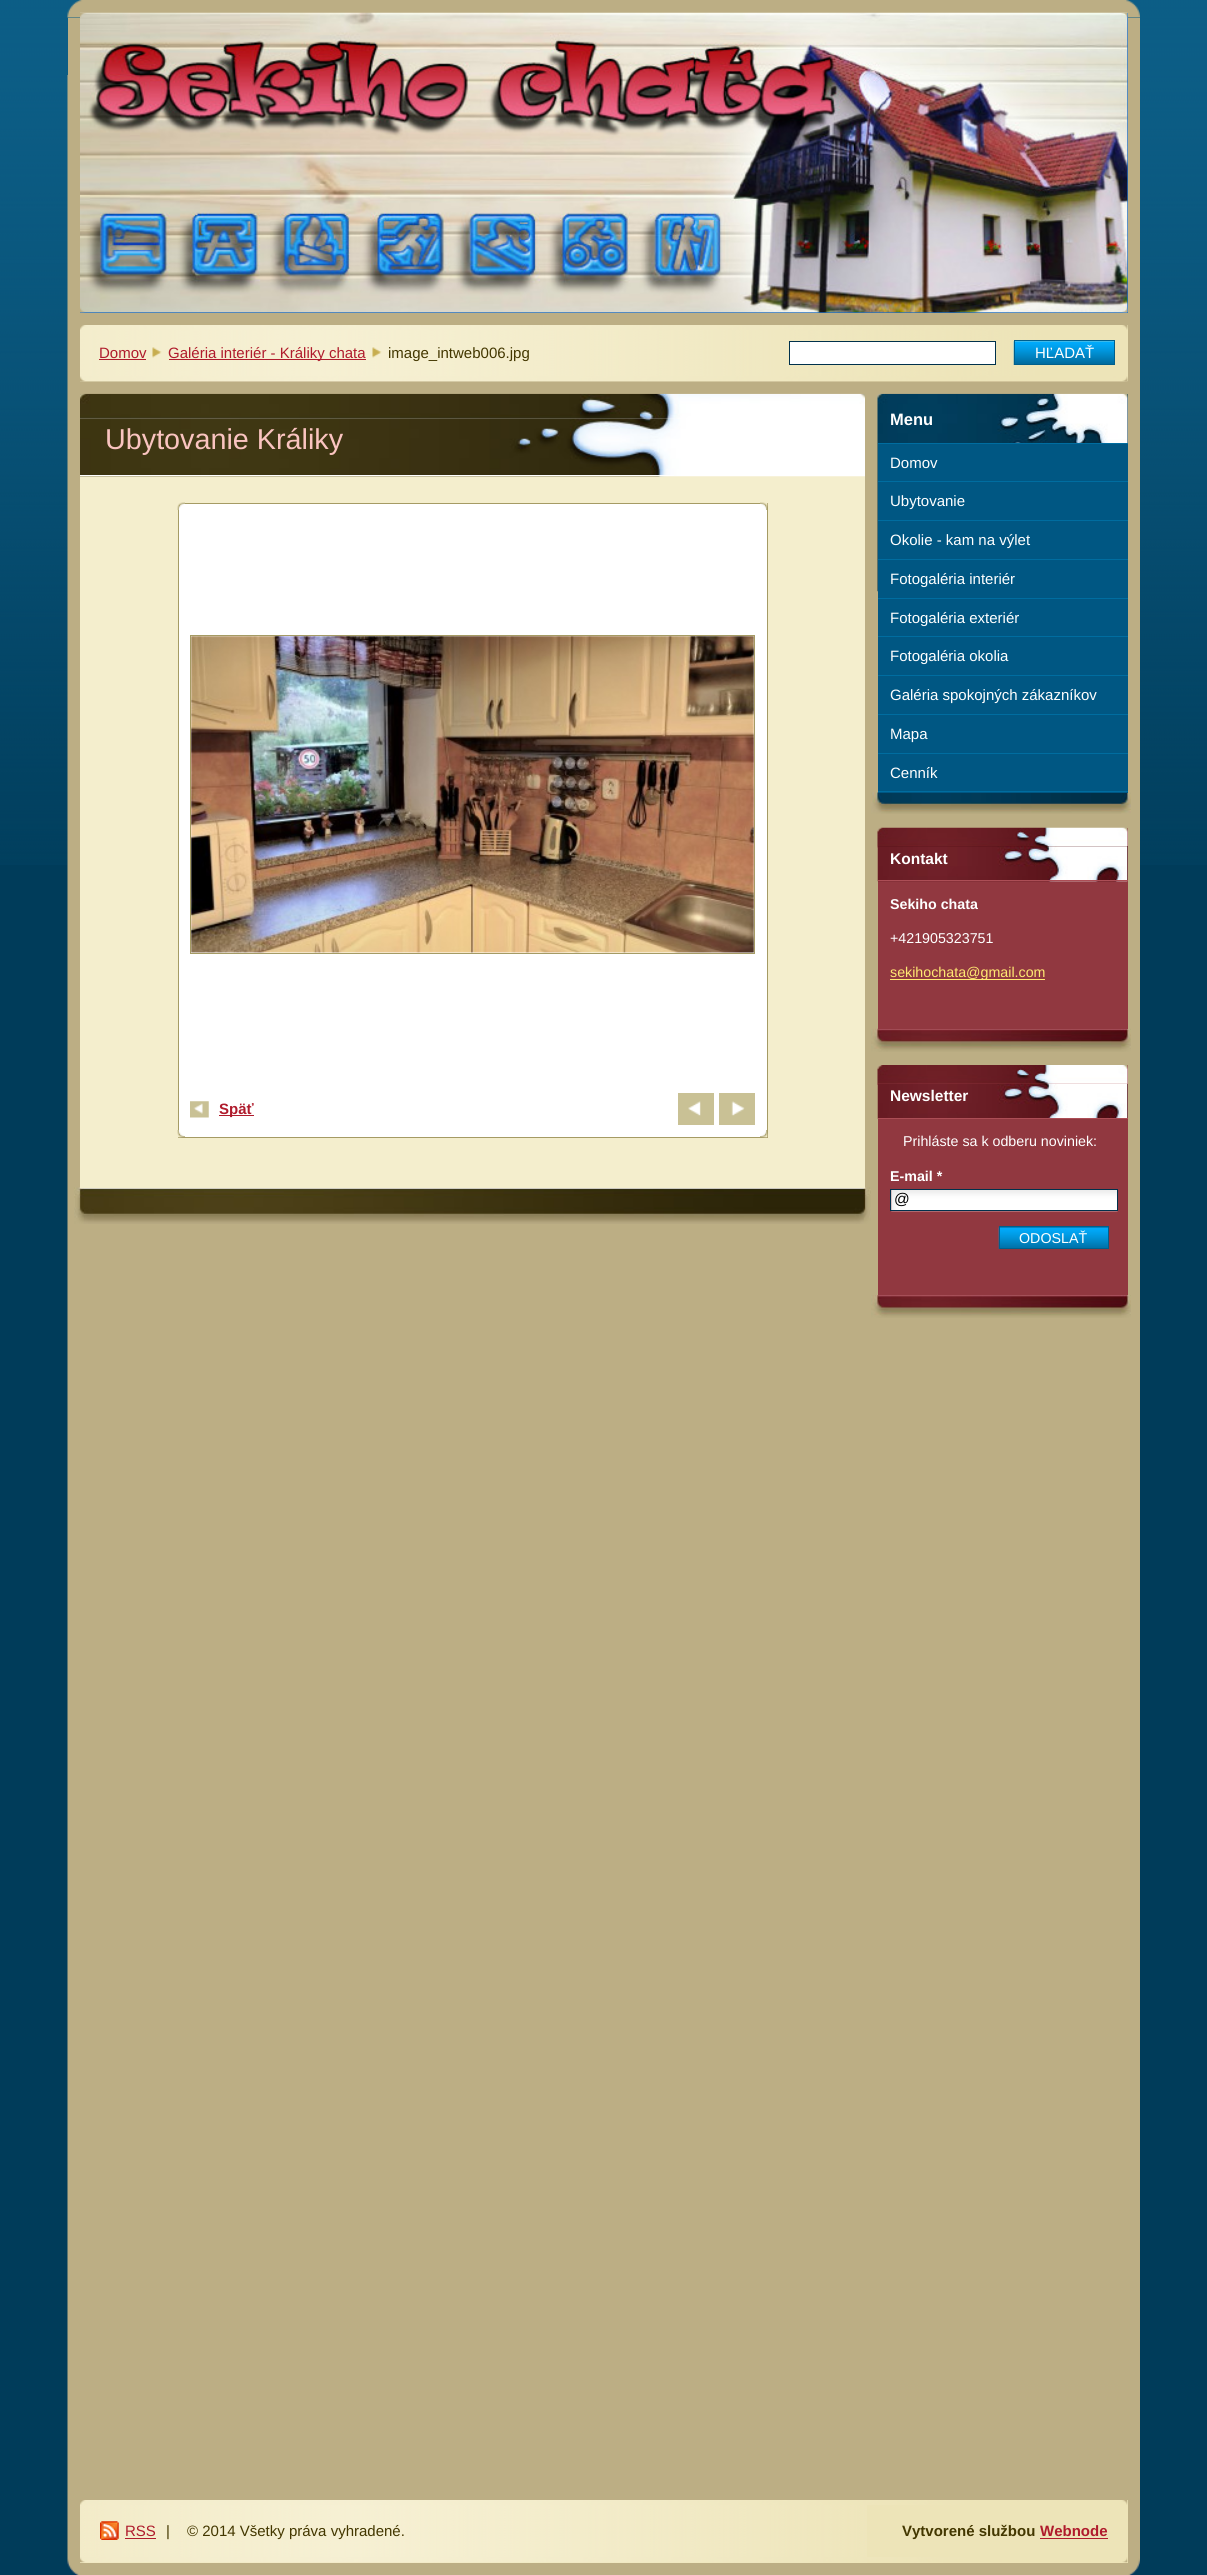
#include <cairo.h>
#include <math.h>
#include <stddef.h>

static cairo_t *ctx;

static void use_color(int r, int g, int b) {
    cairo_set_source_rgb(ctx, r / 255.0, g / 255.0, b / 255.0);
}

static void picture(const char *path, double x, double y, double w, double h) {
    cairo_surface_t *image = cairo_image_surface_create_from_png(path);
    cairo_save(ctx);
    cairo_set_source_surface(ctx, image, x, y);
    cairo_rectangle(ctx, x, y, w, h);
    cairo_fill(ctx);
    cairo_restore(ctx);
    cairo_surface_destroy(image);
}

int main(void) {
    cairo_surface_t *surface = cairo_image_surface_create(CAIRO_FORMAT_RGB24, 1207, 2575);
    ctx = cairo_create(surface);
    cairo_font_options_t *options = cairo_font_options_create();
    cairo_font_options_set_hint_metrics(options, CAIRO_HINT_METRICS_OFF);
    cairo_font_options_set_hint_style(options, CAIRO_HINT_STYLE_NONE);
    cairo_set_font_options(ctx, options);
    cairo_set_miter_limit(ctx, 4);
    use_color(0, 60, 90);
    cairo_paint(ctx);
    picture("img1.png", 0, 0, 1207, 865);
    picture("img2.png", 67, 75, 1073, 2500);
    picture("img3.png", 67, 0, 1073, 18);
    use_color(188, 174, 132);
    cairo_rectangle(ctx, 68, 18, 1072, 57);
    cairo_fill(ctx);
    use_color(38, 111, 188);
    cairo_rectangle(ctx, 80, 13, 1048, 300);
    cairo_fill(ctx);
    picture("img4.png", 80, 12, 1048, 301);
    picture("img5.png", 80, 12, 1048, 301);
    use_color(237, 228, 184);
    cairo_rectangle(ctx, 1127, 325, 1, 56);
    cairo_fill(ctx);
    picture("img6.png", 80, 325, 1048, 57);
    picture("img7.png", 80, 376, 1048, 6);
    picture("img8.png", 80, 325, 1048, 5);
    cairo_select_font_face(ctx, "Liberation Sans", CAIRO_FONT_SLANT_NORMAL, CAIRO_FONT_WEIGHT_NORMAL);
    cairo_set_font_size(ctx, 15);
    use_color(175, 27, 44);
    cairo_move_to(ctx, 99, 358);
    cairo_show_text(ctx, "Domov");
    cairo_rectangle(ctx, 99, 359, 47, 1);
    cairo_fill(ctx);
    picture("img9.png", 152, 347, 10, 11);
    cairo_rectangle(ctx, 169, 359, 197, 1);
    cairo_fill(ctx);
    cairo_move_to(ctx, 168, 358);
    cairo_show_text(ctx, "Galéria interiér - Králiky chata");
    picture("img10.png", 372, 347, 10, 11);
    use_color(67, 55, 0);
    cairo_move_to(ctx, 388, 358);
    cairo_show_text(ctx, "image_intweb006.jpg");
    use_color(255, 255, 255);
    cairo_rectangle(ctx, 789.5, 341.5, 206, 23);
    cairo_fill_preserve(ctx);
    use_color(0, 49, 76);
    cairo_set_line_width(ctx, 1);
    cairo_stroke(ctx);
    picture("img11.png", 1013, 341, 101, 24);
    cairo_rectangle(ctx, 1014.5, 340.5, 100, 24);
    use_color(0, 95, 140);
    cairo_stroke(ctx);
    use_color(255, 255, 255);
    cairo_move_to(ctx, 1035, 358);
    cairo_show_text(ctx, "HĽADAŤ");
    picture("img12.png", 74, 1187, 797, 37);
    use_color(244, 238, 205);
    cairo_rectangle(ctx, 80, 476, 785, 712);
    cairo_fill(ctx);
    picture("img13.png", 80, 393, 785, 26);
    picture("img14.png", 80, 418, 785, 59);
    use_color(255, 255, 255);
    cairo_rectangle(ctx, 80, 475, 594, 1);
    cairo_fill(ctx);
    cairo_set_font_size(ctx, 28.75);
    use_color(250, 196, 192);
    cairo_move_to(ctx, 105, 449);
    cairo_show_text(ctx, "Ubytovanie Králiky");
    use_color(255, 255, 255);
    cairo_rectangle(ctx, 178.5, 503.5, 589, 634);
    cairo_fill_preserve(ctx);
    use_color(165, 155, 100);
    cairo_stroke(ctx);
    picture("img15.png", 177, 502, 8, 8);
    picture("img16.png", 760, 502, 8, 8);
    picture("img17.png", 177, 1130, 8, 8);
    picture("img18.png", 760, 1130, 8, 8);
    cairo_rectangle(ctx, 190.5, 635.5, 564, 318);
    cairo_stroke(ctx);
    picture("img19.png", 191, 636, 563, 317);
    picture("img20.png", 190, 1101, 19, 17);
    use_color(175, 27, 44);
    cairo_rectangle(ctx, 219, 1115, 35, 1);
    cairo_fill(ctx);
    cairo_select_font_face(ctx, "Liberation Sans", CAIRO_FONT_SLANT_NORMAL, CAIRO_FONT_WEIGHT_BOLD);
    cairo_set_font_size(ctx, 15);
    cairo_move_to(ctx, 219, 1114);
    cairo_show_text(ctx, "Späť");
    use_color(201, 193, 149);
    cairo_rectangle(ctx, 678, 1093, 36, 32);
    cairo_fill(ctx);
    picture("img21.png", 688, 1101, 13, 15);
    cairo_rectangle(ctx, 719, 1093, 36, 32);
    cairo_fill(ctx);
    picture("img22.png", 731, 1101, 14, 15);
    picture("img23.png", 871, 792, 260, 22);
    use_color(0, 47, 70);
    cairo_rectangle(ctx, 1127, 394, 1, 49);
    cairo_fill(ctx);
    picture("img24.png", 877, 393, 251, 199);
    cairo_set_font_size(ctx, 16.5);
    use_color(255, 255, 255);
    cairo_move_to(ctx, 890, 425);
    cairo_show_text(ctx, "Menu");
    use_color(0, 87, 131);
    cairo_rectangle(ctx, 878, 444, 250, 349);
    cairo_fill(ctx);
    use_color(0, 109, 160);
    cairo_rectangle(ctx, 878, 443, 250, 1);
    cairo_fill(ctx);
    cairo_rectangle(ctx, 878, 481, 250, 1);
    cairo_fill(ctx);
    cairo_select_font_face(ctx, "Liberation Sans", CAIRO_FONT_SLANT_NORMAL, CAIRO_FONT_WEIGHT_NORMAL);
    cairo_set_font_size(ctx, 15);
    use_color(255, 255, 255);
    cairo_move_to(ctx, 890, 468);
    cairo_show_text(ctx, "Domov");
    use_color(0, 109, 160);
    cairo_rectangle(ctx, 878, 520, 250, 1);
    cairo_fill(ctx);
    use_color(255, 255, 255);
    cairo_move_to(ctx, 890, 506);
    cairo_show_text(ctx, "Ubytovanie");
    use_color(0, 109, 160);
    cairo_rectangle(ctx, 878, 559, 250, 1);
    cairo_fill(ctx);
    use_color(255, 255, 255);
    cairo_move_to(ctx, 890, 545);
    cairo_show_text(ctx, "Okolie - kam na výlet");
    use_color(0, 109, 160);
    cairo_rectangle(ctx, 878, 598, 250, 1);
    cairo_fill(ctx);
    use_color(255, 255, 255);
    cairo_move_to(ctx, 890, 584);
    cairo_show_text(ctx, "Fotogaléria interiér");
    use_color(0, 109, 160);
    cairo_rectangle(ctx, 878, 636, 250, 1);
    cairo_fill(ctx);
    use_color(255, 255, 255);
    cairo_move_to(ctx, 890, 623);
    cairo_show_text(ctx, "Fotogaléria exteriér");
    use_color(0, 109, 160);
    cairo_rectangle(ctx, 878, 675, 250, 1);
    cairo_fill(ctx);
    use_color(255, 255, 255);
    cairo_move_to(ctx, 890, 661);
    cairo_show_text(ctx, "Fotogaléria okolia");
    use_color(0, 109, 160);
    cairo_rectangle(ctx, 878, 714, 250, 1);
    cairo_fill(ctx);
    use_color(255, 255, 255);
    cairo_move_to(ctx, 890, 700);
    cairo_show_text(ctx, "Galéria spokojných zákazníkov");
    use_color(0, 109, 160);
    cairo_rectangle(ctx, 878, 753, 250, 1);
    cairo_fill(ctx);
    use_color(255, 255, 255);
    cairo_move_to(ctx, 890, 739);
    cairo_show_text(ctx, "Mapa");
    use_color(0, 109, 160);
    cairo_rectangle(ctx, 878, 791, 250, 1);
    cairo_fill(ctx);
    use_color(255, 255, 255);
    cairo_move_to(ctx, 890, 778);
    cairo_show_text(ctx, "Cenník");
    picture("img25.png", 871, 1028, 260, 24);
    use_color(145, 56, 64);
    cairo_rectangle(ctx, 878, 828, 250, 201);
    cairo_fill(ctx);
    picture("img26.png", 877, 827, 251, 21);
    use_color(77, 12, 18);
    cairo_rectangle(ctx, 878, 846, 250, 34);
    cairo_fill(ctx);
    picture("img27.png", 877, 846, 251, 36);
    use_color(172, 78, 86);
    cairo_rectangle(ctx, 878, 880, 250, 1);
    cairo_fill(ctx);
    cairo_select_font_face(ctx, "Liberation Sans", CAIRO_FONT_SLANT_NORMAL, CAIRO_FONT_WEIGHT_BOLD);
    cairo_set_font_size(ctx, 15.5);
    use_color(255, 255, 255);
    cairo_move_to(ctx, 890, 864);
    cairo_show_text(ctx, "Kontakt");
    cairo_set_font_size(ctx, 14.25);
    cairo_move_to(ctx, 890, 909);
    cairo_show_text(ctx, "Sekiho chata");
    cairo_select_font_face(ctx, "Liberation Sans", CAIRO_FONT_SLANT_NORMAL, CAIRO_FONT_WEIGHT_NORMAL);
    cairo_move_to(ctx, 890, 943);
    cairo_show_text(ctx, "+421905323751");
    use_color(255, 233, 114);
    cairo_rectangle(ctx, 890, 979, 155, 1);
    cairo_fill(ctx);
    cairo_move_to(ctx, 890, 977);
    cairo_show_text(ctx, "sekihochata@gmail.com");
    picture("img28.png", 871, 1295, 260, 23);
    use_color(145, 56, 64);
    cairo_rectangle(ctx, 878, 1065, 250, 230);
    cairo_fill(ctx);
    picture("img29.png", 877, 1065, 251, 20);
    use_color(77, 12, 18);
    cairo_rectangle(ctx, 1127, 1084, 1, 34);
    cairo_fill(ctx);
    picture("img30.png", 877, 1083, 251, 36);
    use_color(172, 78, 86);
    cairo_rectangle(ctx, 878, 1118, 250, 1);
    cairo_fill(ctx);
    cairo_select_font_face(ctx, "Liberation Sans", CAIRO_FONT_SLANT_NORMAL, CAIRO_FONT_WEIGHT_BOLD);
    cairo_set_font_size(ctx, 15.5);
    use_color(255, 255, 255);
    cairo_move_to(ctx, 890, 1101);
    cairo_show_text(ctx, "Newsletter");
    cairo_select_font_face(ctx, "Liberation Sans", CAIRO_FONT_SLANT_NORMAL, CAIRO_FONT_WEIGHT_NORMAL);
    cairo_set_font_size(ctx, 14.25);
    cairo_move_to(ctx, 903, 1146);
    cairo_show_text(ctx, "Prihláste sa k odberu noviniek:");
    cairo_select_font_face(ctx, "Liberation Sans", CAIRO_FONT_SLANT_NORMAL, CAIRO_FONT_WEIGHT_BOLD);
    cairo_move_to(ctx, 890, 1181);
    cairo_show_text(ctx, "E-mail *");
    picture("img31.png", 891, 1190, 227, 22);
    cairo_rectangle(ctx, 890.5, 1189.5, 227, 21);
    use_color(0, 49, 76);
    cairo_stroke(ctx);
    cairo_select_font_face(ctx, "Liberation Sans", CAIRO_FONT_SLANT_NORMAL, CAIRO_FONT_WEIGHT_NORMAL);
    cairo_set_font_size(ctx, 15.5);
    use_color(0, 0, 0);
    cairo_move_to(ctx, 894, 1204);
    cairo_show_text(ctx, "@");
    use_color(0, 90, 133);
    cairo_rectangle(ctx, 1000, 1227, 108, 1);
    cairo_fill(ctx);
    picture("img32.png", 998, 1227, 110, 22);
    cairo_rectangle(ctx, 999.5, 1226.5, 109, 22);
    use_color(0, 95, 140);
    cairo_stroke(ctx);
    cairo_set_font_size(ctx, 14.25);
    use_color(255, 255, 255);
    cairo_move_to(ctx, 1019, 1243);
    cairo_show_text(ctx, "ODOSLAŤ");
    use_color(237, 228, 184);
    cairo_rectangle(ctx, 80, 2500, 1048, 63);
    cairo_fill(ctx);
    picture("img33.png", 80, 2505, 787, 58);
    picture("img34.png", 80, 2557, 1048, 6);
    picture("img35.png", 80, 2500, 1048, 5);
    picture("img36.png", 100, 2521, 19, 19);
    cairo_set_font_size(ctx, 15);
    use_color(175, 27, 44);
    cairo_move_to(ctx, 125, 2536);
    cairo_show_text(ctx, "RSS");
    cairo_rectangle(ctx, 125, 2538, 31, 1);
    cairo_fill(ctx);
    use_color(67, 55, 0);
    cairo_move_to(ctx, 166, 2536);
    cairo_show_text(ctx, "|");
    cairo_move_to(ctx, 187, 2536);
    cairo_show_text(ctx, "© 2014 Všetky práva vyhradené.");
    cairo_select_font_face(ctx, "Liberation Sans", CAIRO_FONT_SLANT_NORMAL, CAIRO_FONT_WEIGHT_BOLD);
    cairo_move_to(ctx, 902, 2536);
    cairo_show_text(ctx, "Vytvorené službou");
    use_color(175, 27, 44);
    cairo_move_to(ctx, 1040, 2536);
    cairo_show_text(ctx, "Webnode");
    cairo_rectangle(ctx, 1040, 2538, 68, 1);
    cairo_fill(ctx);
    cairo_surface_write_to_png(surface, "result.png");
    cairo_font_options_destroy(options);
    cairo_destroy(ctx);
    cairo_surface_destroy(surface);
    return 0;
}
